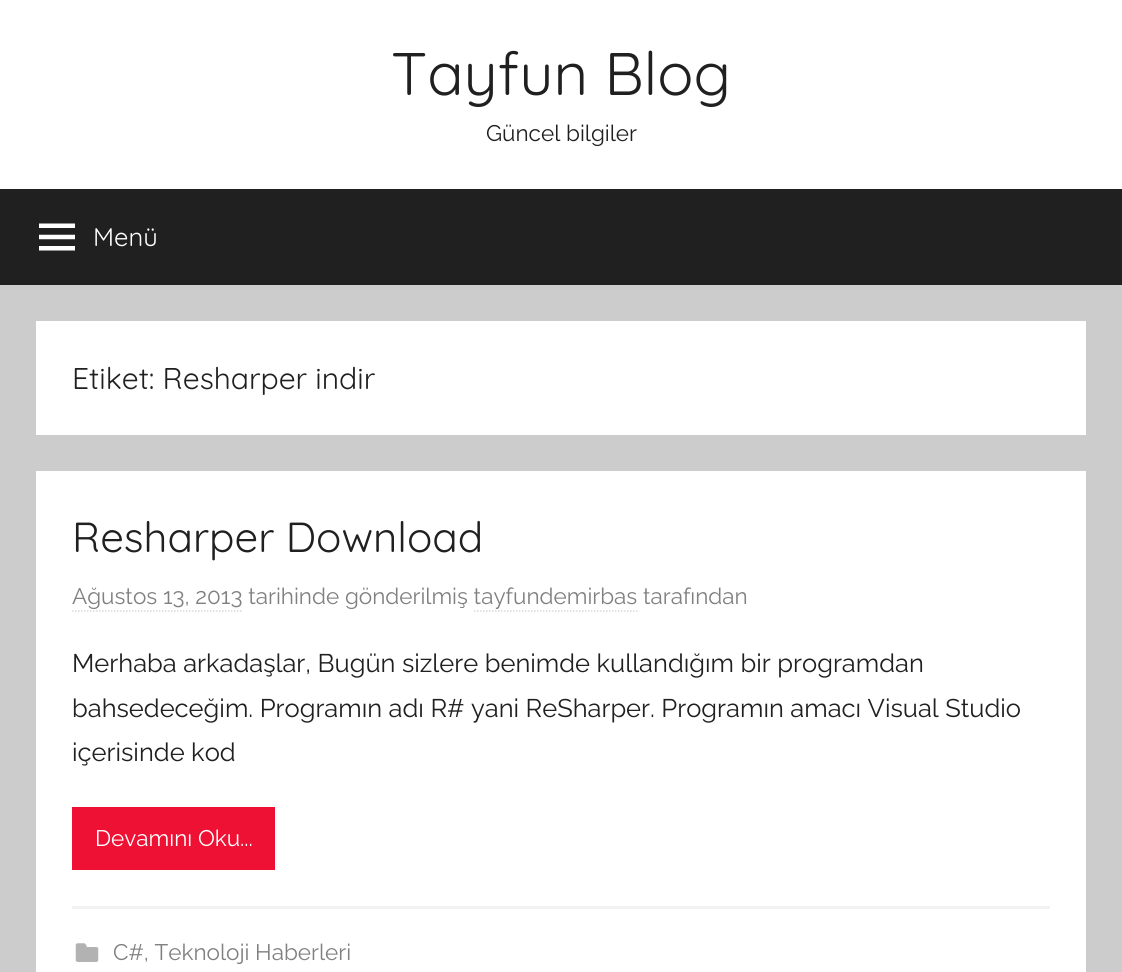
#include <cairo.h>
#include <math.h>
#include <stddef.h>

static cairo_t *ctx;

static void use_color(int r, int g, int b) {
    cairo_set_source_rgb(ctx, r / 255.0, g / 255.0, b / 255.0);
}

static void picture(const char *path, double x, double y, double w, double h) {
    cairo_surface_t *image = cairo_image_surface_create_from_png(path);
    cairo_save(ctx);
    cairo_set_source_surface(ctx, image, x, y);
    cairo_rectangle(ctx, x, y, w, h);
    cairo_fill(ctx);
    cairo_restore(ctx);
    cairo_surface_destroy(image);
}

int main(void) {
    cairo_surface_t *surface = cairo_image_surface_create(CAIRO_FORMAT_RGB24, 1122, 972);
    ctx = cairo_create(surface);
    cairo_font_options_t *options = cairo_font_options_create();
    cairo_font_options_set_hint_metrics(options, CAIRO_HINT_METRICS_OFF);
    cairo_font_options_set_hint_style(options, CAIRO_HINT_STYLE_NONE);
    cairo_set_font_options(ctx, options);
    cairo_set_miter_limit(ctx, 4);
    use_color(204, 204, 204);
    cairo_paint(ctx);
    use_color(255, 255, 255);
    cairo_rectangle(ctx, 0, 0, 1122, 189);
    cairo_fill(ctx);
    cairo_select_font_face(ctx, "Quicksand", CAIRO_FONT_SLANT_NORMAL, CAIRO_FONT_WEIGHT_NORMAL);
    cairo_set_font_size(ctx, 60);
    use_color(32, 32, 32);
    cairo_move_to(ctx, 391, 95);
    cairo_show_text(ctx, "Tayfun Blog");
    cairo_select_font_face(ctx, "Raleway", CAIRO_FONT_SLANT_NORMAL, CAIRO_FONT_WEIGHT_NORMAL);
    cairo_set_font_size(ctx, 22.5);
    cairo_move_to(ctx, 486, 141);
    cairo_show_text(ctx, "Güncel bilgiler");
    cairo_rectangle(ctx, 0, 189, 1122, 96);
    cairo_fill(ctx);
    picture("img1.png", 39, 223, 36, 28);
    cairo_select_font_face(ctx, "Quicksand", CAIRO_FONT_SLANT_NORMAL, CAIRO_FONT_WEIGHT_NORMAL);
    cairo_set_font_size(ctx, 25.5);
    use_color(255, 255, 255);
    cairo_move_to(ctx, 93, 246);
    cairo_show_text(ctx, "Menü");
    cairo_rectangle(ctx, 36, 321, 1050, 114);
    cairo_fill(ctx);
    cairo_set_font_size(ctx, 30);
    use_color(32, 32, 32);
    cairo_move_to(ctx, 72, 389);
    cairo_show_text(ctx, "Etiket: Resharper indir");
    use_color(255, 255, 255);
    cairo_rectangle(ctx, 36, 471, 1050, 501);
    cairo_fill(ctx);
    cairo_set_font_size(ctx, 42);
    use_color(32, 32, 32);
    cairo_move_to(ctx, 72, 552);
    cairo_show_text(ctx, "Resharper Download");
    cairo_select_font_face(ctx, "Raleway", CAIRO_FONT_SLANT_NORMAL, CAIRO_FONT_WEIGHT_NORMAL);
    cairo_set_font_size(ctx, 22.5);
    use_color(128, 128, 128);
    cairo_move_to(ctx, 72, 604);
    cairo_show_text(ctx, "Ağustos 13, 2013 tarihinde gönderilmiş tayfundemirbas tarafından");
    cairo_new_path(ctx);
    cairo_move_to(ctx, 72, 611);
    cairo_line_to(ctx, 243, 611);
    use_color(217, 217, 217);
    cairo_set_line_width(ctx, 1.5);
    cairo_set_dash(ctx, (double[]){1.5, 1.5}, 2, 0);
    cairo_stroke(ctx);
    cairo_new_path(ctx);
    cairo_move_to(ctx, 474, 611);
    cairo_line_to(ctx, 637.5, 611);
    cairo_stroke(ctx);
    cairo_set_font_size(ctx, 25.5);
    use_color(32, 32, 32);
    cairo_move_to(ctx, 72, 672);
    cairo_show_text(ctx, "Merhaba arkadaşlar, Bugün sizlere benimde kullandığım bir programdan");
    cairo_move_to(ctx, 72, 717);
    cairo_show_text(ctx, "bahsedeceğim. Programın adı R# yani ReSharper. Programın amacı Visual Studio");
    cairo_move_to(ctx, 72, 761);
    cairo_show_text(ctx, "içerisinde kod");
    use_color(238, 17, 51);
    cairo_rectangle(ctx, 72, 807, 203, 63);
    cairo_fill(ctx);
    cairo_set_font_size(ctx, 22.5);
    use_color(255, 255, 255);
    cairo_move_to(ctx, 95, 846);
    cairo_show_text(ctx, "Devamını Oku...");
    use_color(242, 242, 242);
    cairo_rectangle(ctx, 72, 906, 978, 3);
    cairo_fill(ctx);
    picture("img2.png", 75, 943, 24, 19);
    use_color(128, 128, 128);
    cairo_move_to(ctx, 113, 960);
    cairo_show_text(ctx, "C#, Teknoloji Haberleri");
    cairo_surface_write_to_png(surface, "result.png");
    cairo_font_options_destroy(options);
    cairo_destroy(ctx);
    cairo_surface_destroy(surface);
    return 0;
}
